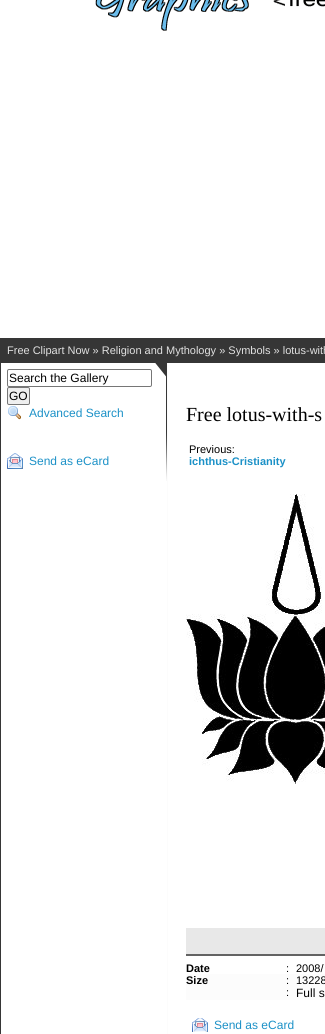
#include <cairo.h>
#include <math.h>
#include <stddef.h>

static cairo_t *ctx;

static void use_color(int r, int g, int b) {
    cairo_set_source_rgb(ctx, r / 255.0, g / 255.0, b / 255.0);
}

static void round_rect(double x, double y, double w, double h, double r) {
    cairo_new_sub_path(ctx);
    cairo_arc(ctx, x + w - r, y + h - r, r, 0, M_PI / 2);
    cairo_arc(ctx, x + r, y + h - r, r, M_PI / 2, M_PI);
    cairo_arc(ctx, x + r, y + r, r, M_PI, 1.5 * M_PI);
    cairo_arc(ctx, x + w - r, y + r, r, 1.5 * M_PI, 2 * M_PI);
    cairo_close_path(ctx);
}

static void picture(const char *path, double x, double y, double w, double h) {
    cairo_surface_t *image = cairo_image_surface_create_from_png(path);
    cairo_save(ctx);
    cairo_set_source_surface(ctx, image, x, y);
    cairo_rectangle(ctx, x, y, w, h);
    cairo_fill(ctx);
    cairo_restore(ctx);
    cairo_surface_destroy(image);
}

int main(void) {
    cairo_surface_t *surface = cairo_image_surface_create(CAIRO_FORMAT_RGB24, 325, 1034);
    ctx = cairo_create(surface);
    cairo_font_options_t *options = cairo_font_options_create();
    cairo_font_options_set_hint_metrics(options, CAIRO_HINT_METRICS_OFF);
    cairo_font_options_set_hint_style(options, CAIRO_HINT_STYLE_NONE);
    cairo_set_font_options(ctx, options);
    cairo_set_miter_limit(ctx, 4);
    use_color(255, 255, 255);
    cairo_paint(ctx);
    picture("img1.png", 95, 0, 230, 31);
    use_color(54, 54, 54);
    cairo_rectangle(ctx, 0, 338, 325, 25);
    cairo_fill(ctx);
    cairo_select_font_face(ctx, "Liberation Sans", CAIRO_FONT_SLANT_NORMAL, CAIRO_FONT_WEIGHT_NORMAL);
    cairo_set_font_size(ctx, 11);
    use_color(225, 225, 225);
    cairo_move_to(ctx, 7, 354);
    cairo_show_text(ctx, "Free Clipart Now » Religion and Mythology » Symbols » lotus-with");
    picture("img2.png", 155, 363, 12, 118);
    use_color(252, 252, 252);
    cairo_rectangle(ctx, 167, 363, 1, 671);
    cairo_fill(ctx);
    use_color(54, 54, 54);
    cairo_rectangle(ctx, 0, 363, 1, 671);
    cairo_fill(ctx);
    round_rect(7.5, 369.5, 144, 17, 1.5);
    use_color(118, 118, 118);
    cairo_set_line_width(ctx, 1);
    cairo_stroke(ctx);
    cairo_set_font_size(ctx, 12);
    use_color(0, 0, 0);
    cairo_move_to(ctx, 9, 382);
    cairo_show_text(ctx, "Search the Gallery");
    use_color(239, 239, 239);
    round_rect(7.5, 387.5, 22, 17, 1.5);
    cairo_fill_preserve(ctx);
    use_color(118, 118, 118);
    cairo_stroke(ctx);
    use_color(0, 0, 0);
    cairo_move_to(ctx, 9, 400);
    cairo_show_text(ctx, "GO");
    picture("img3.png", 8, 406, 13, 14);
    use_color(28, 145, 199);
    cairo_move_to(ctx, 29, 417);
    cairo_show_text(ctx, "Advanced Search");
    picture("img4.png", 7, 453, 16, 16);
    cairo_move_to(ctx, 29, 465);
    cairo_show_text(ctx, "Send as eCard");
    cairo_select_font_face(ctx, "Liberation Serif", CAIRO_FONT_SLANT_NORMAL, CAIRO_FONT_WEIGHT_NORMAL);
    cairo_set_font_size(ctx, 20);
    use_color(0, 0, 0);
    cairo_move_to(ctx, 186, 421);
    cairo_show_text(ctx, "Free lotus-with-s");
    cairo_select_font_face(ctx, "Liberation Sans", CAIRO_FONT_SLANT_NORMAL, CAIRO_FONT_WEIGHT_NORMAL);
    cairo_set_font_size(ctx, 11);
    cairo_move_to(ctx, 189, 453);
    cairo_show_text(ctx, "Previous:");
    cairo_select_font_face(ctx, "Liberation Sans", CAIRO_FONT_SLANT_NORMAL, CAIRO_FONT_WEIGHT_BOLD);
    use_color(28, 145, 199);
    cairo_move_to(ctx, 189, 465);
    cairo_show_text(ctx, "ichthus-Cristianity");
    picture("img5.png", 186, 494, 139, 290);
    use_color(232, 232, 232);
    cairo_rectangle(ctx, 186, 928, 139, 26);
    cairo_fill(ctx);
    use_color(99, 99, 99);
    cairo_rectangle(ctx, 186, 954, 139, 2);
    cairo_fill(ctx);
    use_color(0, 0, 0);
    cairo_move_to(ctx, 186, 972);
    cairo_show_text(ctx, "Date");
    cairo_select_font_face(ctx, "Liberation Sans", CAIRO_FONT_SLANT_NORMAL, CAIRO_FONT_WEIGHT_NORMAL);
    cairo_move_to(ctx, 286, 972);
    cairo_show_text(ctx, ":");
    cairo_move_to(ctx, 296, 972);
    cairo_show_text(ctx, "2008/");
    use_color(252, 252, 252);
    cairo_rectangle(ctx, 186, 974, 139, 26);
    cairo_fill(ctx);
    cairo_select_font_face(ctx, "Liberation Sans", CAIRO_FONT_SLANT_NORMAL, CAIRO_FONT_WEIGHT_BOLD);
    use_color(0, 0, 0);
    cairo_move_to(ctx, 186, 984);
    cairo_show_text(ctx, "Size");
    cairo_select_font_face(ctx, "Liberation Sans", CAIRO_FONT_SLANT_NORMAL, CAIRO_FONT_WEIGHT_NORMAL);
    cairo_move_to(ctx, 286, 984);
    cairo_show_text(ctx, ":");
    cairo_move_to(ctx, 296, 984);
    cairo_show_text(ctx, "13228");
    cairo_move_to(ctx, 286, 996);
    cairo_show_text(ctx, ":");
    cairo_set_font_size(ctx, 12);
    cairo_move_to(ctx, 296, 997);
    cairo_show_text(ctx, "Full s");
    picture("img6.png", 192, 1018, 16, 14);
    use_color(28, 145, 199);
    cairo_move_to(ctx, 214, 1029);
    cairo_show_text(ctx, "Send as eCard");
    cairo_surface_write_to_png(surface, "result.png");
    cairo_font_options_destroy(options);
    cairo_destroy(ctx);
    cairo_surface_destroy(surface);
    return 0;
}
